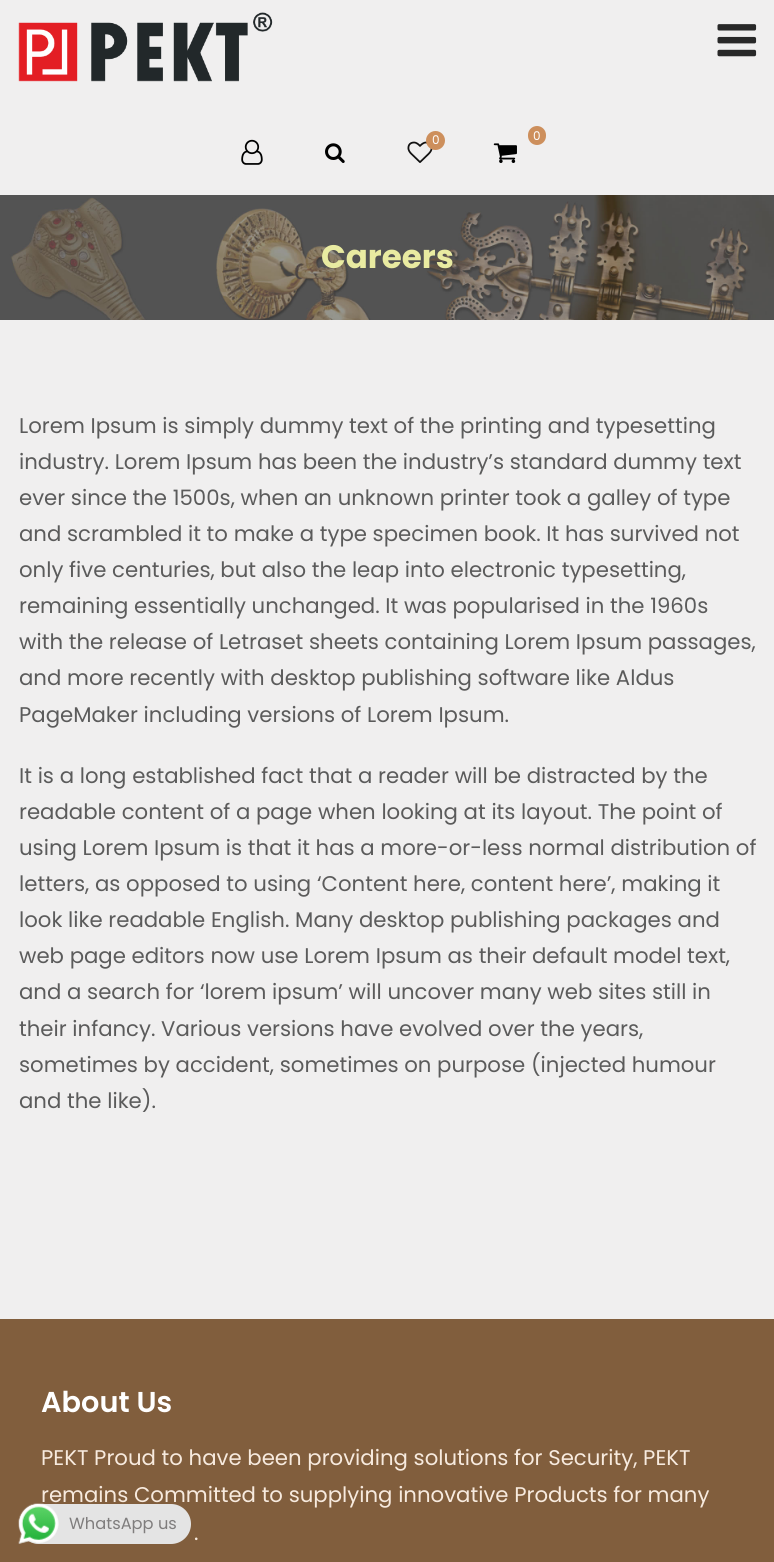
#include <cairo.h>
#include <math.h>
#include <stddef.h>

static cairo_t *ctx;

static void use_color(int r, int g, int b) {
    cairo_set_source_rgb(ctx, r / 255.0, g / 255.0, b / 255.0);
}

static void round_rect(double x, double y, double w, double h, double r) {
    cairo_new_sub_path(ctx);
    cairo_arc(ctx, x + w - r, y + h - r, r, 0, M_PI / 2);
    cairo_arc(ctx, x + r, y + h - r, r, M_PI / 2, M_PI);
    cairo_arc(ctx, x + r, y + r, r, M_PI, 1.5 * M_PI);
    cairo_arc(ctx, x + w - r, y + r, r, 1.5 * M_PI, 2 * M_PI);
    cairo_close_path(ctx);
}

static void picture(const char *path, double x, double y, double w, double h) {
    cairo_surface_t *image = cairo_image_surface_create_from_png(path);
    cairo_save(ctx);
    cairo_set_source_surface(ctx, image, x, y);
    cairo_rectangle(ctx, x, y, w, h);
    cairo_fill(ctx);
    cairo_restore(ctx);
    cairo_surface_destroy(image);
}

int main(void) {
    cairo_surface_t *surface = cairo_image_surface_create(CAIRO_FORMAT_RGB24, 774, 1562);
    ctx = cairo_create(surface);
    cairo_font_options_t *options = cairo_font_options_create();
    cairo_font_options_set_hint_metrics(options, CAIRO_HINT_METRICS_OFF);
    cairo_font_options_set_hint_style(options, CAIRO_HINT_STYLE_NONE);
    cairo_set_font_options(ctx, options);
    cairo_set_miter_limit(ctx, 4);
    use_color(240, 239, 239);
    cairo_paint(ctx);
    picture("img1.png", 18, 12, 255, 70);
    picture("img2.png", 717, 24, 40, 33);
    picture("img3.png", 241, 139, 22, 26);
    picture("img4.png", 325, 143, 20, 20);
    picture("img5.png", 407, 141, 26, 22);
    use_color(205, 143, 92);
    cairo_arc(ctx, 435.5, 140.5, 9.5, 0, 2 * M_PI);
    cairo_fill(ctx);
    cairo_select_font_face(ctx, "Poppins", CAIRO_FONT_SLANT_NORMAL, CAIRO_FONT_WEIGHT_NORMAL);
    cairo_set_font_size(ctx, 12);
    use_color(255, 255, 255);
    cairo_move_to(ctx, 432, 144);
    cairo_show_text(ctx, "0");
    use_color(205, 143, 92);
    round_rect(528, 126, 18, 19, 9);
    cairo_fill(ctx);
    use_color(255, 255, 255);
    cairo_move_to(ctx, 533, 140);
    cairo_show_text(ctx, "0");
    picture("img6.png", 493, 143, 24, 20);
    picture("img7.png", 0, 195, 774, 125);
    cairo_select_font_face(ctx, "Poppins", CAIRO_FONT_SLANT_NORMAL, CAIRO_FONT_WEIGHT_BOLD);
    cairo_set_font_size(ctx, 32.5);
    use_color(233, 235, 161);
    cairo_move_to(ctx, 321, 268);
    cairo_show_text(ctx, "Careers");
    cairo_select_font_face(ctx, "Poppins", CAIRO_FONT_SLANT_NORMAL, CAIRO_FONT_WEIGHT_NORMAL);
    cairo_set_font_size(ctx, 21.25);
    use_color(91, 91, 91);
    cairo_move_to(ctx, 19, 433);
    cairo_show_text(ctx, "Lorem Ipsum is simply dummy text of the printing and typesetting");
    cairo_move_to(ctx, 19, 469);
    cairo_show_text(ctx, "industry. Lorem Ipsum has been the industry’s standard dummy text");
    cairo_move_to(ctx, 19, 505);
    cairo_show_text(ctx, "ever since the 1500s, when an unknown printer took a galley of type");
    cairo_move_to(ctx, 19, 541);
    cairo_show_text(ctx, "and scrambled it to make a type specimen book. It has survived not");
    cairo_move_to(ctx, 19, 577);
    cairo_show_text(ctx, "only five centuries, but also the leap into electronic typesetting,");
    cairo_move_to(ctx, 19, 613);
    cairo_show_text(ctx, "remaining essentially unchanged. It was popularised in the 1960s");
    cairo_move_to(ctx, 19, 649);
    cairo_show_text(ctx, "with the release of Letraset sheets containing Lorem Ipsum passages,");
    cairo_move_to(ctx, 19, 685);
    cairo_show_text(ctx, "and more recently with desktop publishing software like Aldus");
    cairo_move_to(ctx, 19, 722);
    cairo_show_text(ctx, "PageMaker including versions of Lorem Ipsum.");
    cairo_move_to(ctx, 19, 783);
    cairo_show_text(ctx, "It is a long established fact that a reader will be distracted by the");
    cairo_move_to(ctx, 19, 819);
    cairo_show_text(ctx, "readable content of a page when looking at its layout. The point of");
    cairo_move_to(ctx, 19, 855);
    cairo_show_text(ctx, "using Lorem Ipsum is that it has a more-or-less normal distribution of");
    cairo_move_to(ctx, 19, 891);
    cairo_show_text(ctx, "letters, as opposed to using ‘Content here, content here’, making it");
    cairo_move_to(ctx, 19, 927);
    cairo_show_text(ctx, "look like readable English. Many desktop publishing packages and");
    cairo_move_to(ctx, 19, 963);
    cairo_show_text(ctx, "web page editors now use Lorem Ipsum as their default model text,");
    cairo_move_to(ctx, 19, 999);
    cairo_show_text(ctx, "and a search for ‘lorem ipsum’ will uncover many web sites still in");
    cairo_move_to(ctx, 19, 1036);
    cairo_show_text(ctx, "their infancy. Various versions have evolved over the years,");
    cairo_move_to(ctx, 19, 1072);
    cairo_show_text(ctx, "sometimes by accident, sometimes on purpose (injected humour");
    cairo_move_to(ctx, 19, 1108);
    cairo_show_text(ctx, "and the like).");
    use_color(129, 94, 61);
    cairo_rectangle(ctx, 0, 1319, 774, 243);
    cairo_fill(ctx);
    cairo_select_font_face(ctx, "Poppins SemiBold", CAIRO_FONT_SLANT_NORMAL, CAIRO_FONT_WEIGHT_NORMAL);
    cairo_set_font_size(ctx, 28.75);
    use_color(255, 255, 255);
    cairo_move_to(ctx, 41, 1412);
    cairo_show_text(ctx, "About Us");
    cairo_select_font_face(ctx, "Poppins", CAIRO_FONT_SLANT_NORMAL, CAIRO_FONT_WEIGHT_NORMAL);
    cairo_set_font_size(ctx, 21.25);
    use_color(247, 234, 222);
    cairo_move_to(ctx, 41, 1465);
    cairo_show_text(ctx, "PEKT Proud to have been providing solutions for Security, PEKT");
    cairo_move_to(ctx, 41, 1502);
    cairo_show_text(ctx, "remains Committed to supplying innovative Products for many");
    cairo_move_to(ctx, 194, 1540);
    cairo_show_text(ctx, ".");
    use_color(228, 228, 228);
    round_rect(19, 1504, 172, 40, 20);
    cairo_fill(ctx);
    picture("img8.png", 18, 1503, 41, 41);
    cairo_set_font_size(ctx, 16.25);
    use_color(127, 125, 125);
    cairo_move_to(ctx, 69, 1529);
    cairo_show_text(ctx, "WhatsApp us");
    cairo_surface_write_to_png(surface, "result.png");
    cairo_font_options_destroy(options);
    cairo_destroy(ctx);
    cairo_surface_destroy(surface);
    return 0;
}
